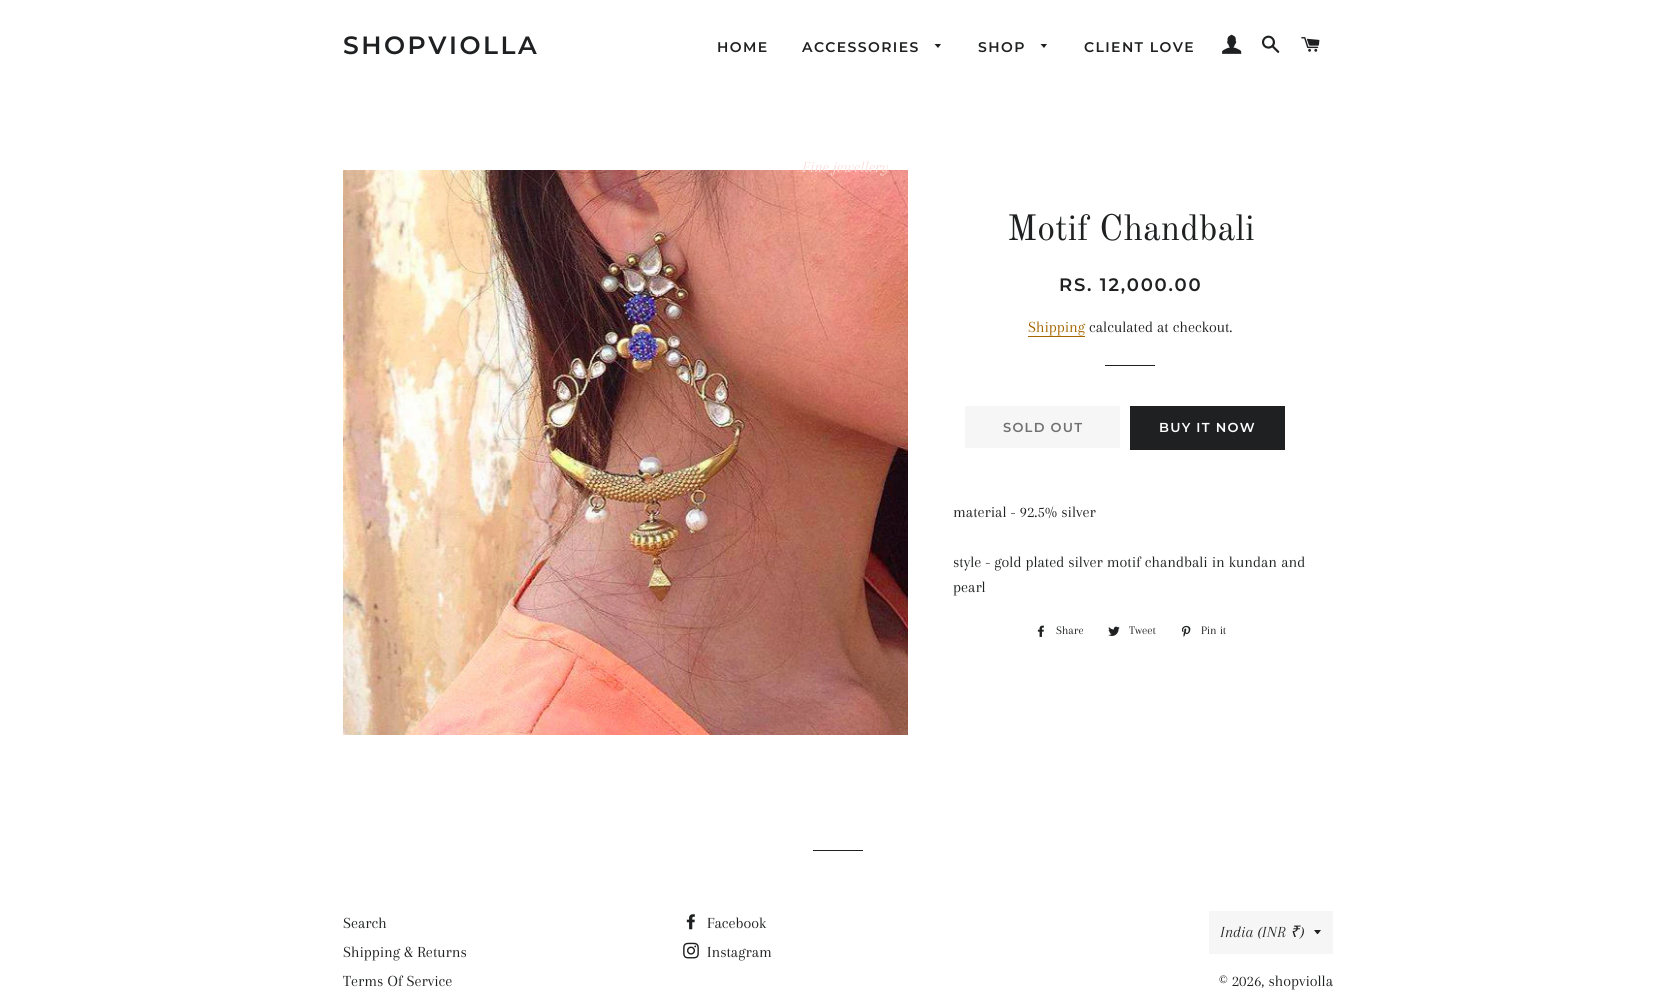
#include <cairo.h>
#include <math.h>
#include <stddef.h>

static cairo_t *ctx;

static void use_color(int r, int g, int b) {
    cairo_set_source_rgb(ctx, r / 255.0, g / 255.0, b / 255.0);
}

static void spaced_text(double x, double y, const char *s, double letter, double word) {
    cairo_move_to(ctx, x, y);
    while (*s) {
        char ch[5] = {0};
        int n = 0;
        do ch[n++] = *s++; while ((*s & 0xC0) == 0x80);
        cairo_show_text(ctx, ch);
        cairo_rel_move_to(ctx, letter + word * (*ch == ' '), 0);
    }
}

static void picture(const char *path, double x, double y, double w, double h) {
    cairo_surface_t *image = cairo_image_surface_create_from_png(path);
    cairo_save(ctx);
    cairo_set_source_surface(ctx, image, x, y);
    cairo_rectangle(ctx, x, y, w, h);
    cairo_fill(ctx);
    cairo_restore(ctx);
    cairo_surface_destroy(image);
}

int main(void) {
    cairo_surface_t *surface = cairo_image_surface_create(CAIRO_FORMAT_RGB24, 1676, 992);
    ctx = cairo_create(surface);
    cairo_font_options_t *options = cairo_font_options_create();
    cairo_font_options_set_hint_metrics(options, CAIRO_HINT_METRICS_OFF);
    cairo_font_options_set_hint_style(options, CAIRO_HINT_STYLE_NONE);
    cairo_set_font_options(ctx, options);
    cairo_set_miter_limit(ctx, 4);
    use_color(255, 255, 255);
    cairo_paint(ctx);
    cairo_select_font_face(ctx, "Montserrat SemiBold", CAIRO_FONT_SLANT_NORMAL, CAIRO_FONT_WEIGHT_NORMAL);
    cairo_set_font_size(ctx, 25);
    use_color(31, 32, 33);
    spaced_text(343, 54, "SHOPVIOLLA", 2.5, 0);
    cairo_set_font_size(ctx, 14);
    spaced_text(717, 52, "HOME", 1.4, 0);
    spaced_text(802, 52, "ACCESSORIES", 1.4, 0);
    cairo_new_path(ctx);
    cairo_move_to(ctx, 934.5, 44);
    cairo_line_to(ctx, 938, 48);
    cairo_line_to(ctx, 941, 44);
    cairo_close_path(ctx);
    cairo_fill(ctx);
    picture("img4.png", 343, 170, 565, 565);
    cairo_select_font_face(ctx, "Arapey", CAIRO_FONT_SLANT_ITALIC, CAIRO_FONT_WEIGHT_NORMAL);
    cairo_set_font_size(ctx, 16);
    use_color(251, 222, 218);
    cairo_move_to(ctx, 802, 172);
    cairo_show_text(ctx, "Fine jewellery");
    cairo_select_font_face(ctx, "Montserrat SemiBold", CAIRO_FONT_SLANT_NORMAL, CAIRO_FONT_WEIGHT_NORMAL);
    cairo_set_font_size(ctx, 14);
    use_color(31, 32, 33);
    spaced_text(978, 52, "SHOP", 1.4, 0);
    cairo_new_path(ctx);
    cairo_move_to(ctx, 1040.5, 44);
    cairo_line_to(ctx, 1044, 48);
    cairo_line_to(ctx, 1047, 44);
    cairo_close_path(ctx);
    cairo_fill(ctx);
    spaced_text(1084, 52, "CLIENT LOVE", 1.4, 0);
    picture("img1.png", 1222, 34, 20, 20);
    picture("img2.png", 1262, 35, 18, 18);
    picture("img3.png", 1301, 37, 19, 15);
    cairo_select_font_face(ctx, "Old Standard TT", CAIRO_FONT_SLANT_NORMAL, CAIRO_FONT_WEIGHT_NORMAL);
    cairo_set_font_size(ctx, 36);
    cairo_move_to(ctx, 1007, 240);
    cairo_show_text(ctx, "Motif Chandbali");
    cairo_select_font_face(ctx, "Montserrat SemiBold", CAIRO_FONT_SLANT_NORMAL, CAIRO_FONT_WEIGHT_NORMAL);
    cairo_set_font_size(ctx, 18);
    spaced_text(1059, 291, "RS. 12,000.00", 1.75, 0);
    cairo_select_font_face(ctx, "Arapey", CAIRO_FONT_SLANT_NORMAL, CAIRO_FONT_WEIGHT_NORMAL);
    cairo_set_font_size(ctx, 16);
    use_color(165, 102, 0);
    cairo_move_to(ctx, 1028, 332);
    cairo_show_text(ctx, "Shipping");
    cairo_rectangle(ctx, 1028, 336, 57, 1);
    cairo_fill(ctx);
    use_color(31, 32, 33);
    cairo_move_to(ctx, 1089, 332);
    cairo_show_text(ctx, "calculated at checkout.");
    cairo_rectangle(ctx, 1105, 365, 50, 1);
    cairo_fill(ctx);
    use_color(246, 246, 246);
    cairo_rectangle(ctx, 965, 406, 155, 42);
    cairo_fill(ctx);
    cairo_select_font_face(ctx, "Montserrat SemiBold", CAIRO_FONT_SLANT_NORMAL, CAIRO_FONT_WEIGHT_NORMAL);
    cairo_set_font_size(ctx, 13);
    use_color(113, 113, 113);
    spaced_text(1003, 432, "SOLD OUT", 1.25, 0);
    use_color(31, 32, 33);
    cairo_rectangle(ctx, 1130, 406, 155, 44);
    cairo_fill(ctx);
    use_color(255, 255, 255);
    spaced_text(1159, 432, "BUY IT NOW", 1.25, 0);
    cairo_select_font_face(ctx, "Arapey", CAIRO_FONT_SLANT_NORMAL, CAIRO_FONT_WEIGHT_NORMAL);
    cairo_set_font_size(ctx, 16);
    use_color(31, 32, 33);
    cairo_move_to(ctx, 953, 517);
    cairo_show_text(ctx, "material - 92.5% silver");
    cairo_move_to(ctx, 953, 567);
    cairo_show_text(ctx, "style - gold plated silver motif chandbali in kundan and");
    cairo_move_to(ctx, 953, 592);
    cairo_show_text(ctx, "pearl");
    picture("img5.png", 1037, 625, 7, 12);
    cairo_set_font_size(ctx, 12);
    cairo_move_to(ctx, 1056, 634);
    cairo_show_text(ctx, "Share");
    picture("img6.png", 1108, 626, 12, 10);
    cairo_move_to(ctx, 1129, 634);
    cairo_show_text(ctx, "Tweet");
    picture("img7.png", 1181, 625, 10, 12);
    cairo_move_to(ctx, 1201, 634);
    cairo_show_text(ctx, "Pin it");
    cairo_rectangle(ctx, 813, 850, 50, 1);
    cairo_fill(ctx);
    cairo_set_font_size(ctx, 16);
    cairo_move_to(ctx, 343, 928);
    cairo_show_text(ctx, "Search");
    cairo_move_to(ctx, 343, 957);
    cairo_show_text(ctx, "Shipping & Returns");
    cairo_move_to(ctx, 343, 986);
    cairo_show_text(ctx, "Terms Of Service");
    picture("img8.png", 686, 914, 9, 16);
    cairo_move_to(ctx, 707, 928);
    cairo_show_text(ctx, "Facebook");
    picture("img9.png", 683, 942, 16, 17);
    cairo_move_to(ctx, 707, 957);
    cairo_show_text(ctx, "Instagram");
    use_color(246, 246, 246);
    cairo_rectangle(ctx, 1209, 911, 124, 43);
    cairo_fill(ctx);
    use_color(31, 32, 33);
    cairo_new_path(ctx);
    cairo_move_to(ctx, 1314, 930);
    cairo_curve_to(ctx, 1318.5, 935.5, 1316.5, 935.5, 1321, 930);
    cairo_close_path(ctx);
    cairo_fill(ctx);
    cairo_select_font_face(ctx, "Arapey", CAIRO_FONT_SLANT_ITALIC, CAIRO_FONT_WEIGHT_NORMAL);
    cairo_move_to(ctx, 1220, 937);
    cairo_show_text(ctx, "India (INR");
    cairo_select_font_face(ctx, "Noto Sans", CAIRO_FONT_SLANT_ITALIC, CAIRO_FONT_WEIGHT_NORMAL);
    cairo_move_to(ctx, 1290, 937);
    cairo_show_text(ctx, "₹");
    cairo_select_font_face(ctx, "Arapey", CAIRO_FONT_SLANT_ITALIC, CAIRO_FONT_WEIGHT_NORMAL);
    cairo_move_to(ctx, 1300, 937);
    cairo_show_text(ctx, ")");
    cairo_select_font_face(ctx, "Arapey", CAIRO_FONT_SLANT_NORMAL, CAIRO_FONT_WEIGHT_NORMAL);
    cairo_move_to(ctx, 1219, 986);
    cairo_show_text(ctx, "© 2026, shopviolla");
    cairo_surface_write_to_png(surface, "result.png");
    cairo_font_options_destroy(options);
    cairo_destroy(ctx);
    cairo_surface_destroy(surface);
    return 0;
}
